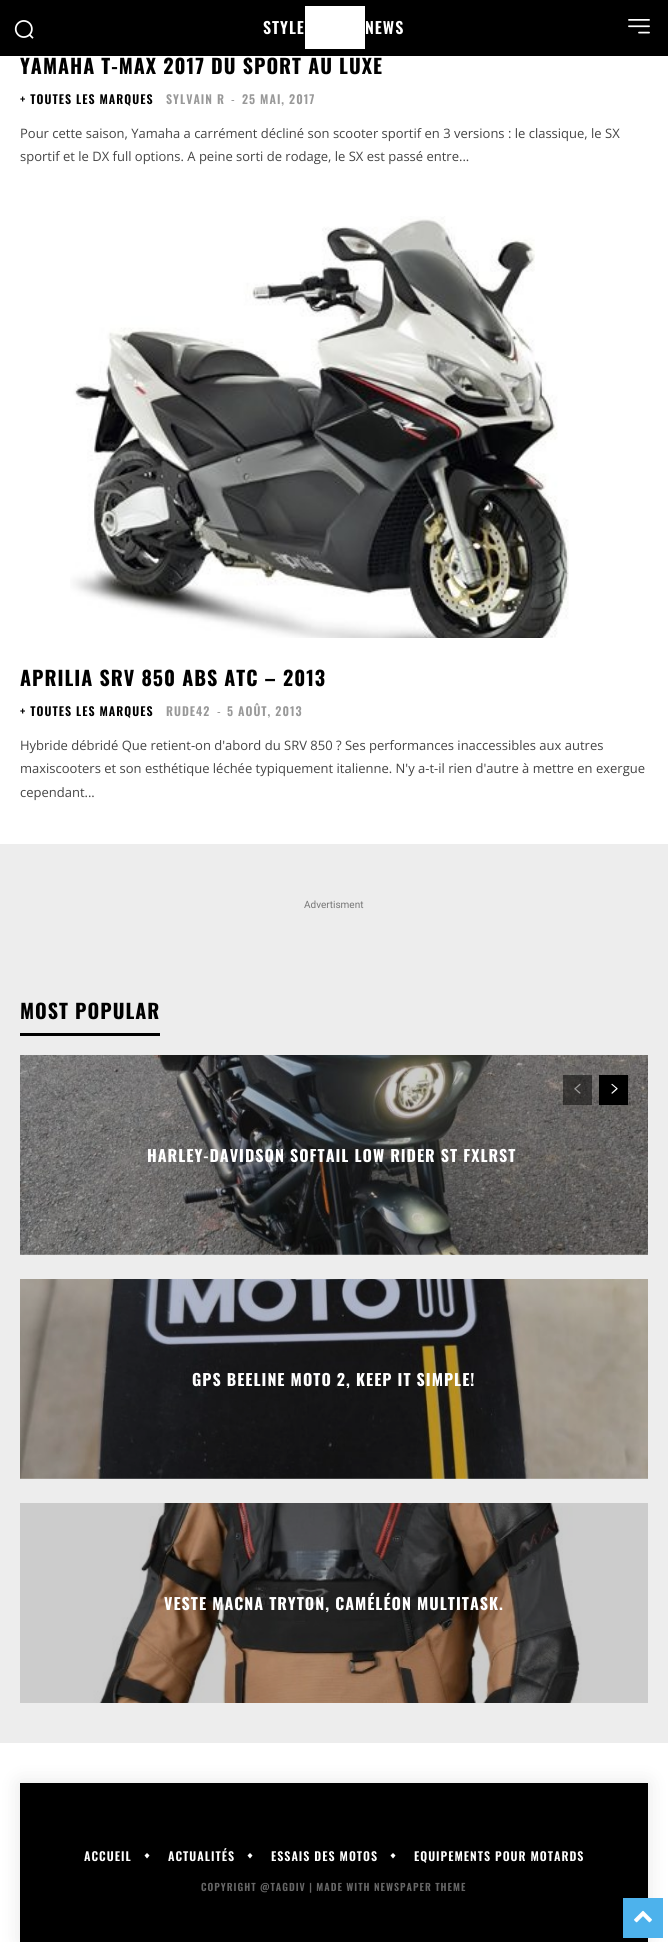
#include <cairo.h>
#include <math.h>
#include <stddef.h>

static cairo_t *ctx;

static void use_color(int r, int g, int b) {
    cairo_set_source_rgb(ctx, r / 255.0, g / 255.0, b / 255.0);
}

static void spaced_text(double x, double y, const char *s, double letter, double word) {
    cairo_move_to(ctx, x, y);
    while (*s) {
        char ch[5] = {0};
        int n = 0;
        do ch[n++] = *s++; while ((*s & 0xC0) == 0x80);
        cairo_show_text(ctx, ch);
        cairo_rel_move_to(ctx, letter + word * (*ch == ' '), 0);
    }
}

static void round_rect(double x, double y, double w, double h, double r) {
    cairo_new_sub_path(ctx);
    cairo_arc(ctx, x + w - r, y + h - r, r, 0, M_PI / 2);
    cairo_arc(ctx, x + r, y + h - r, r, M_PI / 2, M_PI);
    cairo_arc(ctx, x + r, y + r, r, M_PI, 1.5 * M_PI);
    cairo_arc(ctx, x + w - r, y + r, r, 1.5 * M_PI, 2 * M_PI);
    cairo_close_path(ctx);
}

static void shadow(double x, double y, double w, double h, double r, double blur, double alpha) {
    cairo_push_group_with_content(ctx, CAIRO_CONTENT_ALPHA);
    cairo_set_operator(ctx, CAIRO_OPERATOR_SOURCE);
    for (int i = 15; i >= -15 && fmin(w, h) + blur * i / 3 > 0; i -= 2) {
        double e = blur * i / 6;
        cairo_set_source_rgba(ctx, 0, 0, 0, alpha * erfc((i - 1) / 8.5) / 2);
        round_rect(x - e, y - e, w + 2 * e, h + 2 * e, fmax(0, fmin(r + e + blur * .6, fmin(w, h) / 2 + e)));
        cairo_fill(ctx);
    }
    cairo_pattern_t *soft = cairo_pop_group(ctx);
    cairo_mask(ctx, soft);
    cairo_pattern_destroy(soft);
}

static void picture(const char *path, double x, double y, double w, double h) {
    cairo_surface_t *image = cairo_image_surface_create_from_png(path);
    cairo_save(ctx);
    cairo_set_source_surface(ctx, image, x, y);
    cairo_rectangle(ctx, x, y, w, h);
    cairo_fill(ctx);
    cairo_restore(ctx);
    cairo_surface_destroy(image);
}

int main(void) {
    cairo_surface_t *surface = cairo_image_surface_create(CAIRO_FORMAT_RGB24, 668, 1942);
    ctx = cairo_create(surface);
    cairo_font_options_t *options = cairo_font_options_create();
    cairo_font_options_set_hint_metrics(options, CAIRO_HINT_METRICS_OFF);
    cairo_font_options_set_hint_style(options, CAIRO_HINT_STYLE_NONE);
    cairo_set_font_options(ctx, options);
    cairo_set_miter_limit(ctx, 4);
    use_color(255, 255, 255);
    cairo_paint(ctx);
    use_color(0, 0, 0);
    cairo_rectangle(ctx, 0, 0, 668, 56);
    cairo_fill(ctx);
    picture("img1.png", 14, 20, 20, 19);
    cairo_select_font_face(ctx, "Oswald SemiBold", CAIRO_FONT_SLANT_NORMAL, CAIRO_FONT_WEIGHT_NORMAL);
    cairo_set_font_size(ctx, 16);
    use_color(255, 255, 255);
    spaced_text(263, 34, "STYLE", 1, 0);
    cairo_rectangle(ctx, 305, 6, 60, 43);
    cairo_fill(ctx);
    spaced_text(365, 34, "NEWS", 1, 0);
    picture("img2.png", 628, 19, 22, 15);
    cairo_select_font_face(ctx, "Oswald", CAIRO_FONT_SLANT_NORMAL, CAIRO_FONT_WEIGHT_BOLD);
    cairo_set_font_size(ctx, 20);
    use_color(0, 0, 0);
    spaced_text(20, 74, "YAMAHA T-MAX 2017 DU SPORT AU LUXE", 1, 0);
    cairo_select_font_face(ctx, "Oswald SemiBold", CAIRO_FONT_SLANT_NORMAL, CAIRO_FONT_WEIGHT_NORMAL);
    cairo_set_font_size(ctx, 12);
    spaced_text(20, 104, "+ TOUTES LES MARQUES", 1, 0);
    use_color(153, 153, 153);
    spaced_text(166, 104, "SYLVAIN R", 1, 0);
    cairo_select_font_face(ctx, "Oswald", CAIRO_FONT_SLANT_NORMAL, CAIRO_FONT_WEIGHT_NORMAL);
    spaced_text(231, 104, "-", 1, 0);
    cairo_select_font_face(ctx, "Oswald SemiBold", CAIRO_FONT_SLANT_NORMAL, CAIRO_FONT_WEIGHT_NORMAL);
    spaced_text(242, 104, "25 MAI, 2017", 1, 0);
    cairo_select_font_face(ctx, "Open Sans", CAIRO_FONT_SLANT_NORMAL, CAIRO_FONT_WEIGHT_NORMAL);
    cairo_set_font_size(ctx, 13);
    use_color(68, 68, 68);
    cairo_move_to(ctx, 20, 138);
    cairo_show_text(ctx, "Pour cette saison, Yamaha a carrément décliné son scooter sportif en 3 versions : le classique, le SX");
    cairo_move_to(ctx, 20, 161);
    cairo_show_text(ctx, "sportif et le DX full options. A peine sorti de rodage, le SX est passé entre...");
    picture("img3.png", 70, 216, 499, 422);
    cairo_select_font_face(ctx, "Oswald", CAIRO_FONT_SLANT_NORMAL, CAIRO_FONT_WEIGHT_BOLD);
    cairo_set_font_size(ctx, 20);
    use_color(0, 0, 0);
    spaced_text(20, 686, "APRILIA SRV 850 ABS ATC – 2013", 1, 0);
    cairo_select_font_face(ctx, "Oswald SemiBold", CAIRO_FONT_SLANT_NORMAL, CAIRO_FONT_WEIGHT_NORMAL);
    cairo_set_font_size(ctx, 12);
    spaced_text(20, 716, "+ TOUTES LES MARQUES", 1, 0);
    use_color(153, 153, 153);
    spaced_text(166, 716, "RUDE42", 1, 0);
    cairo_select_font_face(ctx, "Oswald", CAIRO_FONT_SLANT_NORMAL, CAIRO_FONT_WEIGHT_NORMAL);
    spaced_text(217, 716, "-", 1, 0);
    cairo_select_font_face(ctx, "Oswald SemiBold", CAIRO_FONT_SLANT_NORMAL, CAIRO_FONT_WEIGHT_NORMAL);
    spaced_text(227, 716, "5 AOÛT, 2013", 1, 0);
    cairo_select_font_face(ctx, "Open Sans", CAIRO_FONT_SLANT_NORMAL, CAIRO_FONT_WEIGHT_NORMAL);
    cairo_set_font_size(ctx, 13);
    use_color(68, 68, 68);
    cairo_move_to(ctx, 20, 750);
    cairo_show_text(ctx, "Hybride débridé Que retient-on d'abord du SRV 850 ? Ses performances inaccessibles aux autres");
    cairo_move_to(ctx, 20, 773);
    cairo_show_text(ctx, "maxiscooters et son esthétique léchée typiquement italienne. N'y a-t-il rien d'autre à mettre en exergue");
    cairo_move_to(ctx, 20, 797);
    cairo_show_text(ctx, "cependant...");
    use_color(237, 237, 237);
    cairo_rectangle(ctx, 0, 844, 668, 899);
    cairo_fill(ctx);
    cairo_select_font_face(ctx, "Roboto", CAIRO_FONT_SLANT_NORMAL, CAIRO_FONT_WEIGHT_NORMAL);
    cairo_set_font_size(ctx, 10);
    use_color(118, 118, 118);
    cairo_move_to(ctx, 304, 908);
    cairo_show_text(ctx, "Advertisment");
    cairo_select_font_face(ctx, "Oswald", CAIRO_FONT_SLANT_NORMAL, CAIRO_FONT_WEIGHT_BOLD);
    cairo_set_font_size(ctx, 20);
    use_color(0, 0, 0);
    spaced_text(20, 1019, "MOST POPULAR", 1, 0);
    cairo_rectangle(ctx, 20, 1033, 140, 3);
    cairo_fill(ctx);
    picture("img6.png", 20, 1055, 628, 200);
    cairo_set_source_rgba(ctx, 0, 0, 0, 0.5);
    cairo_rectangle(ctx, 563, 1075, 29, 30);
    cairo_fill(ctx);
    picture("img4.png", 574, 1083, 7, 11);
    use_color(0, 0, 0);
    cairo_rectangle(ctx, 599, 1075, 29, 30);
    cairo_fill(ctx);
    picture("img5.png", 611, 1083, 7, 11);
    cairo_set_font_size(ctx, 16);
    use_color(255, 255, 255);
    spaced_text(147, 1162, "HARLEY-DAVIDSON SOFTAIL LOW RIDER ST FXLRST", 1, 0);
    picture("img7.png", 20, 1279, 628, 200);
    spaced_text(192, 1386, "GPS BEELINE MOTO 2, KEEP IT SIMPLE!", 1, 0);
    picture("img8.png", 20, 1503, 628, 200);
    spaced_text(164, 1610, "VESTE MACNA TRYTON, CAMÉLÉON MULTITASK.", 1, 0);
    use_color(0, 0, 0);
    shadow(20, 1783, 628, 159, 0, 10, 0.1);
    use_color(0, 0, 0);
    cairo_rectangle(ctx, 20, 1783, 628, 159);
    cairo_fill(ctx);
    cairo_select_font_face(ctx, "Oswald SemiBold", CAIRO_FONT_SLANT_NORMAL, CAIRO_FONT_WEIGHT_NORMAL);
    cairo_set_font_size(ctx, 12);
    use_color(255, 255, 255);
    spaced_text(84, 1861, "ACCUEIL", 1, 0);
    cairo_new_path(ctx);
    cairo_move_to(ctx, 149.5, 1855.5);
    cairo_line_to(ctx, 147, 1858.5);
    cairo_line_to(ctx, 144.5, 1855.5);
    cairo_line_to(ctx, 147, 1853);
    cairo_close_path(ctx);
    cairo_fill(ctx);
    spaced_text(168, 1861, "ACTUALITÉS", 1, 0);
    cairo_new_path(ctx);
    cairo_move_to(ctx, 252.5, 1855.5);
    cairo_line_to(ctx, 250, 1858.5);
    cairo_line_to(ctx, 247.5, 1855.5);
    cairo_line_to(ctx, 250, 1853);
    cairo_close_path(ctx);
    cairo_fill(ctx);
    spaced_text(271, 1861, "ESSAIS DES MOTOS", 1, 0);
    cairo_new_path(ctx);
    cairo_move_to(ctx, 395.5, 1855.5);
    cairo_line_to(ctx, 393, 1858.5);
    cairo_line_to(ctx, 390.5, 1855.5);
    cairo_line_to(ctx, 393, 1853);
    cairo_close_path(ctx);
    cairo_fill(ctx);
    spaced_text(414, 1861, "EQUIPEMENTS POUR MOTARDS", 1, 0);
    cairo_set_font_size(ctx, 10);
    use_color(102, 102, 102);
    spaced_text(201, 1891, "COPYRIGHT @TAGDIV | MADE WITH NEWSPAPER THEME", 1, 0);
    use_color(77, 178, 236);
    cairo_rectangle(ctx, 623, 1898, 40, 40);
    cairo_fill(ctx);
    picture("img9.png", 634, 1910, 18, 13);
    cairo_surface_write_to_png(surface, "result.png");
    cairo_font_options_destroy(options);
    cairo_destroy(ctx);
    cairo_surface_destroy(surface);
    return 0;
}
